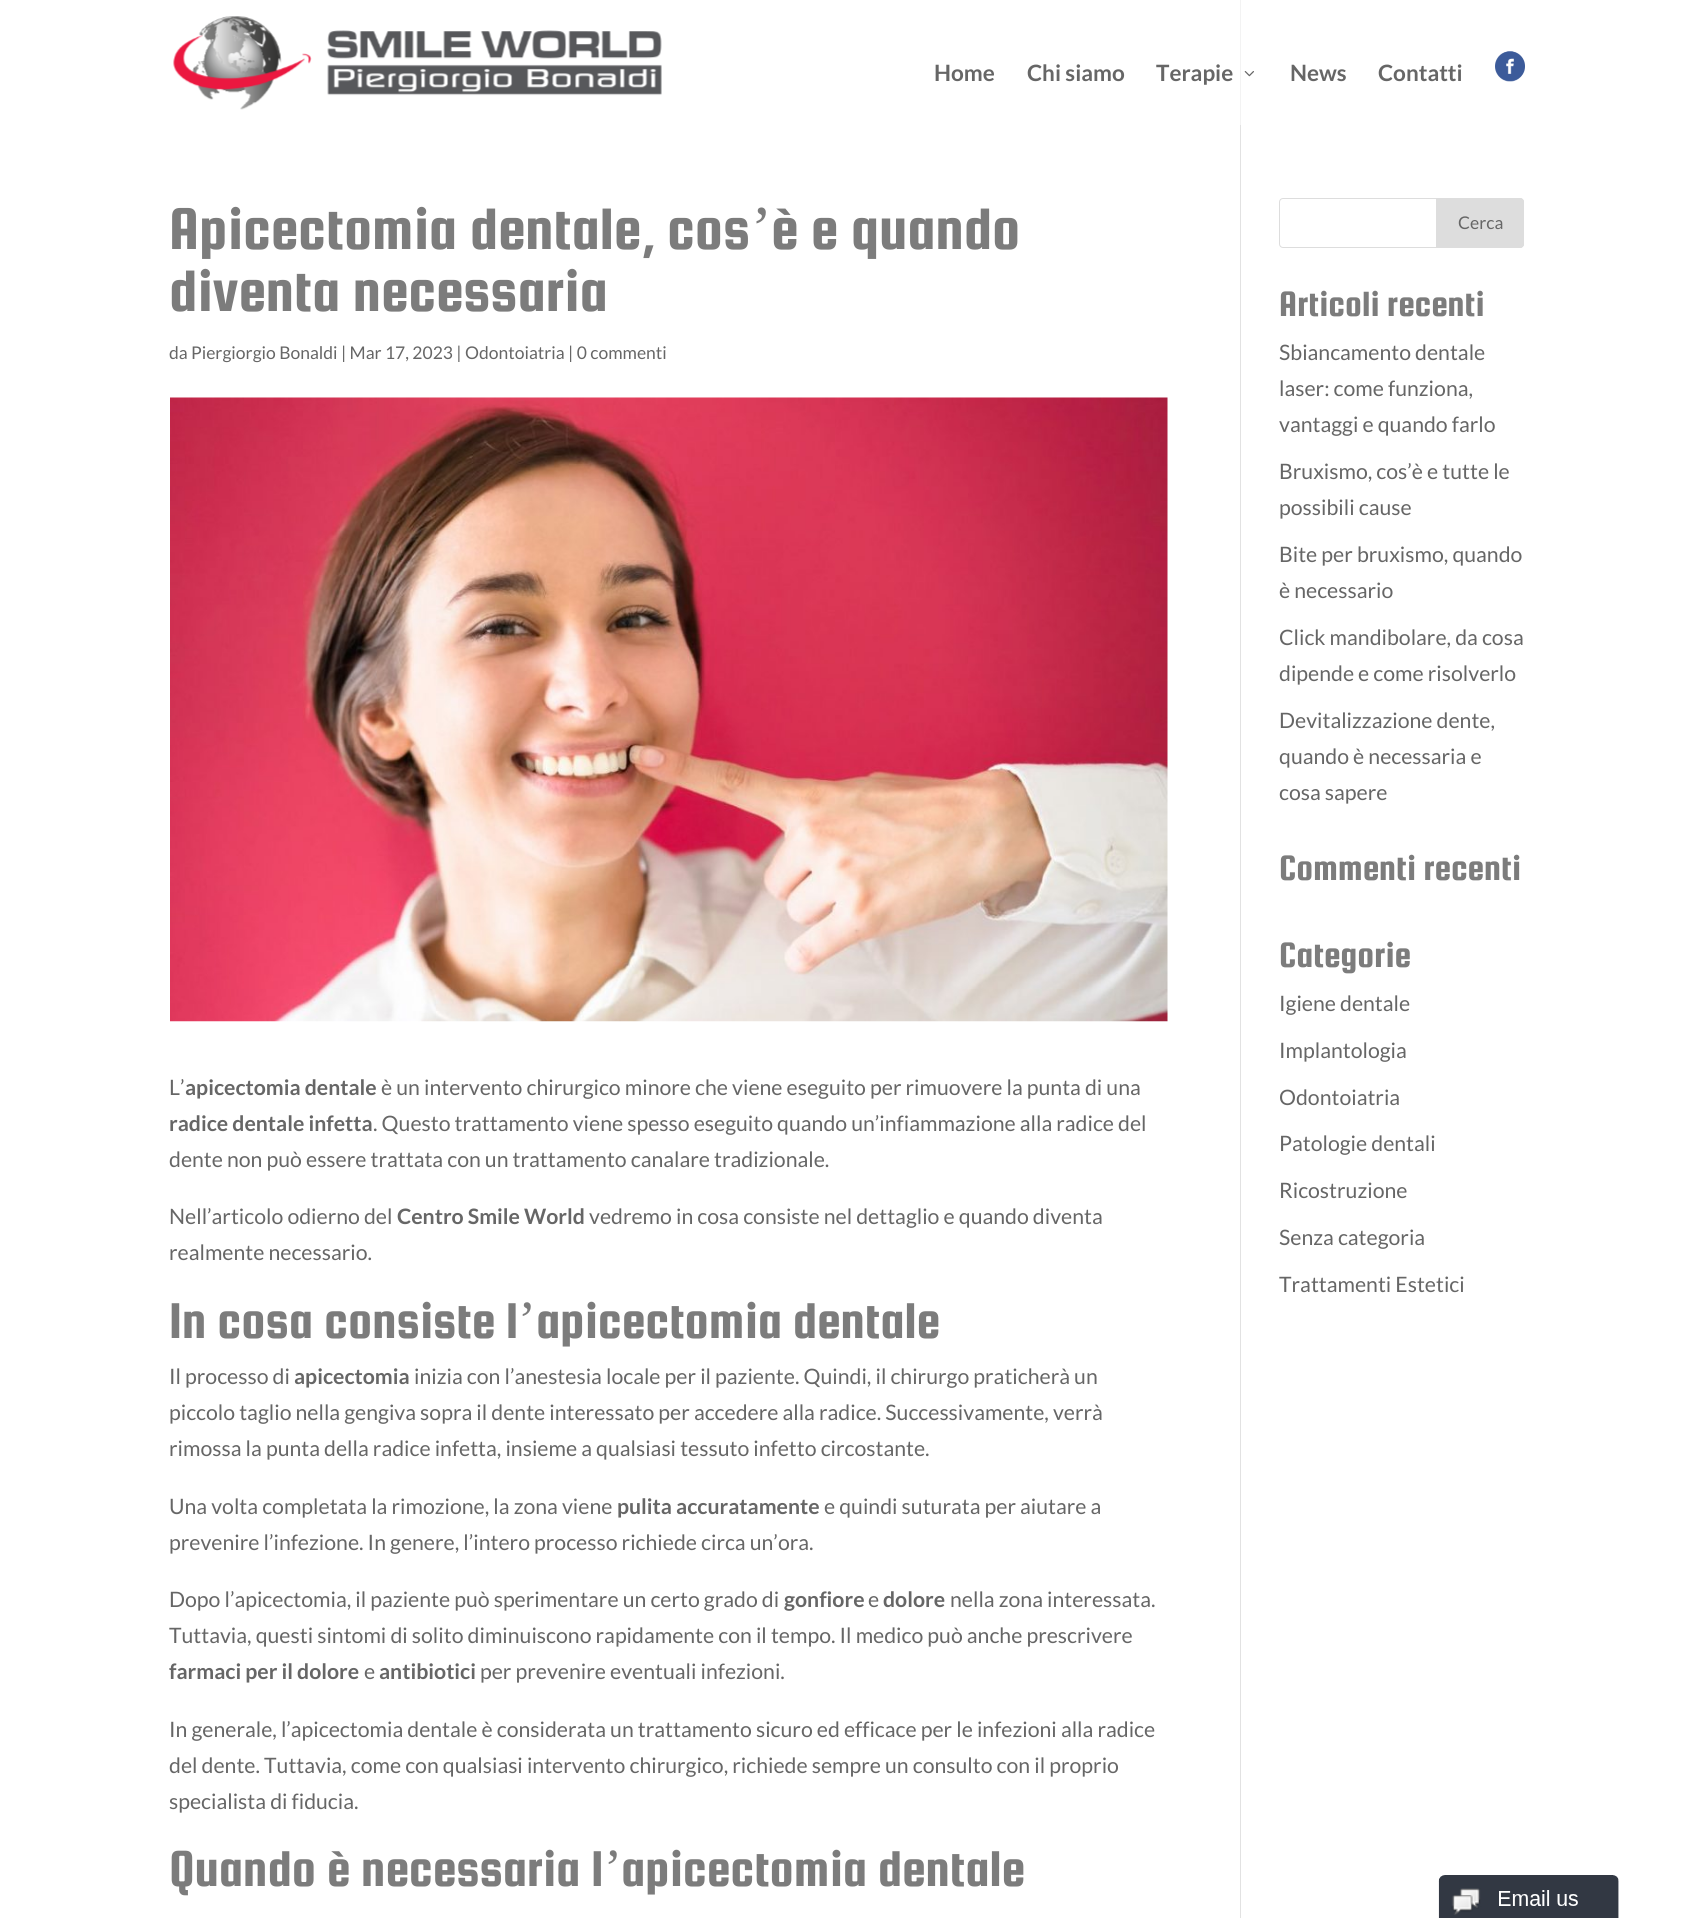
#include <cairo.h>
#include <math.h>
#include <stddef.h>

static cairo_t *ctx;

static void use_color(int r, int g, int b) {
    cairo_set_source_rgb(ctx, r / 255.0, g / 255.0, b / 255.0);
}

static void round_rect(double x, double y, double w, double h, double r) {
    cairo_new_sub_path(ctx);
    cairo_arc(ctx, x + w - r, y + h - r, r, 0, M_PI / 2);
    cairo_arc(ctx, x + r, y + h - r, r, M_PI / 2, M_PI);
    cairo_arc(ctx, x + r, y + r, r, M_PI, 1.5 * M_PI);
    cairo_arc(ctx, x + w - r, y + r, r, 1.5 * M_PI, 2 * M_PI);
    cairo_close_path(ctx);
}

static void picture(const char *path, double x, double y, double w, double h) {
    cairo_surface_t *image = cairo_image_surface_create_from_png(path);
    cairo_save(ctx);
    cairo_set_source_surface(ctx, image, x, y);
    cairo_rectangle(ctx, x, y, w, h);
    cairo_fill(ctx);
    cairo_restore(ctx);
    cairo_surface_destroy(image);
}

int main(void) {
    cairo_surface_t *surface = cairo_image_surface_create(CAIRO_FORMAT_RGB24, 1693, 1918);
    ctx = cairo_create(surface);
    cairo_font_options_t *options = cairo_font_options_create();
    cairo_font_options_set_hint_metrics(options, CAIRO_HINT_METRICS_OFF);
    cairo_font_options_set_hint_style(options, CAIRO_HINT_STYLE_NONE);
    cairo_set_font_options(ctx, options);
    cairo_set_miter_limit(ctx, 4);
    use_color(255, 255, 255);
    cairo_paint(ctx);
    picture("img1.png", 173, 16, 489, 94);
    cairo_select_font_face(ctx, "Lato", CAIRO_FONT_SLANT_NORMAL, CAIRO_FONT_WEIGHT_BOLD);
    cairo_set_font_size(ctx, 22.5);
    use_color(102, 102, 102);
    cairo_move_to(ctx, 934, 81);
    cairo_show_text(ctx, "Home");
    cairo_move_to(ctx, 1027, 81);
    cairo_show_text(ctx, "Chi siamo");
    cairo_move_to(ctx, 1156, 81);
    cairo_show_text(ctx, "Terapie");
    picture("img2.png", 1244, 71, 10, 6);
    cairo_move_to(ctx, 1290, 81);
    cairo_show_text(ctx, "News");
    cairo_move_to(ctx, 1378, 81);
    cairo_show_text(ctx, "Contatti");
    picture("img3.png", 1495, 51, 30, 31);
    use_color(226, 226, 226);
    cairo_rectangle(ctx, 1240, 125, 1, 1793);
    cairo_fill(ctx);
    use_color(243, 243, 243);
    cairo_rectangle(ctx, 1240, 0, 1, 125);
    cairo_fill(ctx);
    cairo_select_font_face(ctx, "Squada One", CAIRO_FONT_SLANT_NORMAL, CAIRO_FONT_WEIGHT_NORMAL);
    cairo_set_font_size(ctx, 62.5);
    use_color(124, 124, 124);
    cairo_move_to(ctx, 169, 249);
    cairo_show_text(ctx, "Apicectomia dentale, cos");
    cairo_select_font_face(ctx, "Liberation Serif", CAIRO_FONT_SLANT_NORMAL, CAIRO_FONT_WEIGHT_NORMAL);
    cairo_move_to(ctx, 751, 249);
    cairo_show_text(ctx, "’");
    cairo_select_font_face(ctx, "Squada One", CAIRO_FONT_SLANT_NORMAL, CAIRO_FONT_WEIGHT_NORMAL);
    cairo_move_to(ctx, 771, 249);
    cairo_show_text(ctx, "è e quando");
    cairo_move_to(ctx, 169, 311);
    cairo_show_text(ctx, "diventa necessaria");
    cairo_select_font_face(ctx, "Lato", CAIRO_FONT_SLANT_NORMAL, CAIRO_FONT_WEIGHT_NORMAL);
    cairo_set_font_size(ctx, 17.5);
    use_color(102, 102, 102);
    cairo_move_to(ctx, 169, 359);
    cairo_show_text(ctx, "da Piergiorgio Bonaldi | Mar 17, 2023 | Odontoiatria | 0 commenti");
    picture("img4.png", 170, 397, 998, 625);
    cairo_set_font_size(ctx, 21.25);
    cairo_move_to(ctx, 169, 1095);
    cairo_show_text(ctx, "L’");
    cairo_select_font_face(ctx, "Lato", CAIRO_FONT_SLANT_NORMAL, CAIRO_FONT_WEIGHT_BOLD);
    cairo_move_to(ctx, 185, 1095);
    cairo_show_text(ctx, "apicectomia dentale");
    cairo_select_font_face(ctx, "Lato", CAIRO_FONT_SLANT_NORMAL, CAIRO_FONT_WEIGHT_NORMAL);
    cairo_move_to(ctx, 381, 1095);
    cairo_show_text(ctx, "è un intervento chirurgico minore che viene eseguito per rimuovere la punta di una");
    cairo_select_font_face(ctx, "Lato", CAIRO_FONT_SLANT_NORMAL, CAIRO_FONT_WEIGHT_BOLD);
    cairo_move_to(ctx, 169, 1131);
    cairo_show_text(ctx, "radice dentale infetta");
    cairo_select_font_face(ctx, "Lato", CAIRO_FONT_SLANT_NORMAL, CAIRO_FONT_WEIGHT_NORMAL);
    cairo_move_to(ctx, 373, 1131);
    cairo_show_text(ctx, ". Questo trattamento viene spesso eseguito quando un’infiammazione alla radice del");
    cairo_move_to(ctx, 169, 1167);
    cairo_show_text(ctx, "dente non può essere trattata con un trattamento canalare tradizionale.");
    cairo_move_to(ctx, 169, 1224);
    cairo_show_text(ctx, "Nell’articolo odierno del");
    cairo_select_font_face(ctx, "Lato", CAIRO_FONT_SLANT_NORMAL, CAIRO_FONT_WEIGHT_BOLD);
    cairo_move_to(ctx, 397, 1224);
    cairo_show_text(ctx, "Centro Smile World");
    cairo_select_font_face(ctx, "Lato", CAIRO_FONT_SLANT_NORMAL, CAIRO_FONT_WEIGHT_NORMAL);
    cairo_move_to(ctx, 589, 1224);
    cairo_show_text(ctx, "vedremo in cosa consiste nel dettaglio e quando diventa");
    cairo_move_to(ctx, 169, 1260);
    cairo_show_text(ctx, "realmente necessario.");
    cairo_select_font_face(ctx, "Squada One", CAIRO_FONT_SLANT_NORMAL, CAIRO_FONT_WEIGHT_NORMAL);
    cairo_set_font_size(ctx, 53.75);
    use_color(124, 124, 124);
    cairo_move_to(ctx, 169, 1338);
    cairo_show_text(ctx, "In cosa consiste l");
    cairo_select_font_face(ctx, "Liberation Serif", CAIRO_FONT_SLANT_NORMAL, CAIRO_FONT_WEIGHT_NORMAL);
    cairo_move_to(ctx, 518, 1338);
    cairo_show_text(ctx, "’");
    cairo_select_font_face(ctx, "Squada One", CAIRO_FONT_SLANT_NORMAL, CAIRO_FONT_WEIGHT_NORMAL);
    cairo_move_to(ctx, 536, 1338);
    cairo_show_text(ctx, "apicectomia dentale");
    cairo_select_font_face(ctx, "Lato", CAIRO_FONT_SLANT_NORMAL, CAIRO_FONT_WEIGHT_NORMAL);
    cairo_set_font_size(ctx, 21.25);
    use_color(102, 102, 102);
    cairo_move_to(ctx, 169, 1384);
    cairo_show_text(ctx, "Il processo di");
    cairo_select_font_face(ctx, "Lato", CAIRO_FONT_SLANT_NORMAL, CAIRO_FONT_WEIGHT_BOLD);
    cairo_move_to(ctx, 294, 1384);
    cairo_show_text(ctx, "apicectomia");
    cairo_select_font_face(ctx, "Lato", CAIRO_FONT_SLANT_NORMAL, CAIRO_FONT_WEIGHT_NORMAL);
    cairo_move_to(ctx, 414, 1384);
    cairo_show_text(ctx, "inizia con l’anestesia locale per il paziente. Quindi, il chirurgo praticherà un");
    cairo_move_to(ctx, 169, 1420);
    cairo_show_text(ctx, "piccolo taglio nella gengiva sopra il dente interessato per accedere alla radice. Successivamente, verrà");
    cairo_move_to(ctx, 169, 1456);
    cairo_show_text(ctx, "rimossa la punta della radice infetta, insieme a qualsiasi tessuto infetto circostante.");
    cairo_move_to(ctx, 169, 1514);
    cairo_show_text(ctx, "Una volta completata la rimozione, la zona viene");
    cairo_select_font_face(ctx, "Lato", CAIRO_FONT_SLANT_NORMAL, CAIRO_FONT_WEIGHT_BOLD);
    cairo_move_to(ctx, 617, 1514);
    cairo_show_text(ctx, "pulita accuratamente");
    cairo_select_font_face(ctx, "Lato", CAIRO_FONT_SLANT_NORMAL, CAIRO_FONT_WEIGHT_NORMAL);
    cairo_move_to(ctx, 824, 1514);
    cairo_show_text(ctx, "e quindi suturata per aiutare a");
    cairo_move_to(ctx, 169, 1550);
    cairo_show_text(ctx, "prevenire l’infezione. In genere, l’intero processo richiede circa un’ora.");
    cairo_move_to(ctx, 169, 1607);
    cairo_show_text(ctx, "Dopo l’apicectomia, il paziente può sperimentare un certo grado di");
    cairo_select_font_face(ctx, "Lato", CAIRO_FONT_SLANT_NORMAL, CAIRO_FONT_WEIGHT_BOLD);
    cairo_move_to(ctx, 784, 1607);
    cairo_show_text(ctx, "gonfiore");
    cairo_select_font_face(ctx, "Lato", CAIRO_FONT_SLANT_NORMAL, CAIRO_FONT_WEIGHT_NORMAL);
    cairo_move_to(ctx, 868, 1607);
    cairo_show_text(ctx, "e");
    cairo_select_font_face(ctx, "Lato", CAIRO_FONT_SLANT_NORMAL, CAIRO_FONT_WEIGHT_BOLD);
    cairo_move_to(ctx, 883, 1607);
    cairo_show_text(ctx, "dolore");
    cairo_select_font_face(ctx, "Lato", CAIRO_FONT_SLANT_NORMAL, CAIRO_FONT_WEIGHT_NORMAL);
    cairo_move_to(ctx, 950, 1607);
    cairo_show_text(ctx, "nella zona interessata.");
    cairo_move_to(ctx, 169, 1643);
    cairo_show_text(ctx, "Tuttavia, questi sintomi di solito diminuiscono rapidamente con il tempo. Il medico può anche prescrivere");
    cairo_select_font_face(ctx, "Lato", CAIRO_FONT_SLANT_NORMAL, CAIRO_FONT_WEIGHT_BOLD);
    cairo_move_to(ctx, 169, 1679);
    cairo_show_text(ctx, "farmaci per il dolore");
    cairo_select_font_face(ctx, "Lato", CAIRO_FONT_SLANT_NORMAL, CAIRO_FONT_WEIGHT_NORMAL);
    cairo_move_to(ctx, 364, 1679);
    cairo_show_text(ctx, "e");
    cairo_select_font_face(ctx, "Lato", CAIRO_FONT_SLANT_NORMAL, CAIRO_FONT_WEIGHT_BOLD);
    cairo_move_to(ctx, 379, 1679);
    cairo_show_text(ctx, "antibiotici");
    cairo_select_font_face(ctx, "Lato", CAIRO_FONT_SLANT_NORMAL, CAIRO_FONT_WEIGHT_NORMAL);
    cairo_move_to(ctx, 480, 1679);
    cairo_show_text(ctx, "per prevenire eventuali infezioni.");
    cairo_move_to(ctx, 169, 1737);
    cairo_show_text(ctx, "In generale, l’apicectomia dentale è considerata un trattamento sicuro ed efficace per le infezioni alla radice");
    cairo_move_to(ctx, 169, 1773);
    cairo_show_text(ctx, "del dente. Tuttavia, come con qualsiasi intervento chirurgico, richiede sempre un consulto con il proprio");
    cairo_move_to(ctx, 169, 1809);
    cairo_show_text(ctx, "specialista di fiducia.");
    cairo_select_font_face(ctx, "Squada One", CAIRO_FONT_SLANT_NORMAL, CAIRO_FONT_WEIGHT_NORMAL);
    cairo_set_font_size(ctx, 53.75);
    use_color(124, 124, 124);
    cairo_move_to(ctx, 169, 1886);
    cairo_show_text(ctx, "Quando è necessaria l");
    cairo_select_font_face(ctx, "Liberation Serif", CAIRO_FONT_SLANT_NORMAL, CAIRO_FONT_WEIGHT_NORMAL);
    cairo_move_to(ctx, 604, 1886);
    cairo_show_text(ctx, "’");
    cairo_select_font_face(ctx, "Squada One", CAIRO_FONT_SLANT_NORMAL, CAIRO_FONT_WEIGHT_NORMAL);
    cairo_move_to(ctx, 621, 1886);
    cairo_show_text(ctx, "apicectomia dentale");
    round_rect(1279.5, 198.5, 244, 49, 3.5);
    use_color(221, 221, 221);
    cairo_set_line_width(ctx, 1);
    cairo_stroke(ctx);
    cairo_new_path(ctx);
    cairo_move_to(ctx, 1436.5, 198.5);
    cairo_line_to(ctx, 1520, 198.5);
    cairo_curve_to(ctx, 1522, 198.5, 1523.5, 200, 1523.5, 202);
    cairo_line_to(ctx, 1523.5, 244);
    cairo_curve_to(ctx, 1523.5, 246, 1522, 247.5, 1520, 247.5);
    cairo_line_to(ctx, 1436.5, 247.5);
    cairo_close_path(ctx);
    cairo_fill_preserve(ctx);
    cairo_stroke(ctx);
    cairo_select_font_face(ctx, "Lato", CAIRO_FONT_SLANT_NORMAL, CAIRO_FONT_WEIGHT_NORMAL);
    cairo_set_font_size(ctx, 17.5);
    use_color(102, 102, 102);
    cairo_move_to(ctx, 1458, 229);
    cairo_show_text(ctx, "Cerca");
    cairo_select_font_face(ctx, "Squada One", CAIRO_FONT_SLANT_NORMAL, CAIRO_FONT_WEIGHT_NORMAL);
    cairo_set_font_size(ctx, 37.5);
    use_color(124, 124, 124);
    cairo_move_to(ctx, 1279, 316);
    cairo_show_text(ctx, "Articoli recenti");
    cairo_select_font_face(ctx, "Lato", CAIRO_FONT_SLANT_NORMAL, CAIRO_FONT_WEIGHT_NORMAL);
    cairo_set_font_size(ctx, 21.25);
    use_color(102, 102, 102);
    cairo_move_to(ctx, 1279, 360);
    cairo_show_text(ctx, "Sbiancamento dentale");
    cairo_move_to(ctx, 1279, 396);
    cairo_show_text(ctx, "laser: come funziona,");
    cairo_move_to(ctx, 1279, 432);
    cairo_show_text(ctx, "vantaggi e quando farlo");
    cairo_move_to(ctx, 1279, 479);
    cairo_show_text(ctx, "Bruxismo, cos’è e tutte le");
    cairo_move_to(ctx, 1279, 515);
    cairo_show_text(ctx, "possibili cause");
    cairo_move_to(ctx, 1279, 562);
    cairo_show_text(ctx, "Bite per bruxismo, quando");
    cairo_move_to(ctx, 1279, 598);
    cairo_show_text(ctx, "è necessario");
    cairo_move_to(ctx, 1279, 645);
    cairo_show_text(ctx, "Click mandibolare, da cosa");
    cairo_move_to(ctx, 1279, 681);
    cairo_show_text(ctx, "dipende e come risolverlo");
    cairo_move_to(ctx, 1279, 728);
    cairo_show_text(ctx, "Devitalizzazione dente,");
    cairo_move_to(ctx, 1279, 764);
    cairo_show_text(ctx, "quando è necessaria e");
    cairo_move_to(ctx, 1279, 800);
    cairo_show_text(ctx, "cosa sapere");
    cairo_select_font_face(ctx, "Squada One", CAIRO_FONT_SLANT_NORMAL, CAIRO_FONT_WEIGHT_NORMAL);
    cairo_set_font_size(ctx, 37.5);
    use_color(124, 124, 124);
    cairo_move_to(ctx, 1279, 880);
    cairo_show_text(ctx, "Commenti recenti");
    cairo_move_to(ctx, 1279, 967);
    cairo_show_text(ctx, "Categorie");
    cairo_select_font_face(ctx, "Lato", CAIRO_FONT_SLANT_NORMAL, CAIRO_FONT_WEIGHT_NORMAL);
    cairo_set_font_size(ctx, 21.25);
    use_color(102, 102, 102);
    cairo_move_to(ctx, 1279, 1011);
    cairo_show_text(ctx, "Igiene dentale");
    cairo_move_to(ctx, 1279, 1058);
    cairo_show_text(ctx, "Implantologia");
    cairo_move_to(ctx, 1279, 1105);
    cairo_show_text(ctx, "Odontoiatria");
    cairo_move_to(ctx, 1279, 1151);
    cairo_show_text(ctx, "Patologie dentali");
    cairo_move_to(ctx, 1279, 1198);
    cairo_show_text(ctx, "Ricostruzione");
    cairo_move_to(ctx, 1279, 1245);
    cairo_show_text(ctx, "Senza categoria");
    cairo_move_to(ctx, 1279, 1292);
    cairo_show_text(ctx, "Trattamenti Estetici");
    picture("img5.png", 1438, 1875, 181, 43);
    cairo_surface_write_to_png(surface, "result.png");
    cairo_font_options_destroy(options);
    cairo_destroy(ctx);
    cairo_surface_destroy(surface);
    return 0;
}
